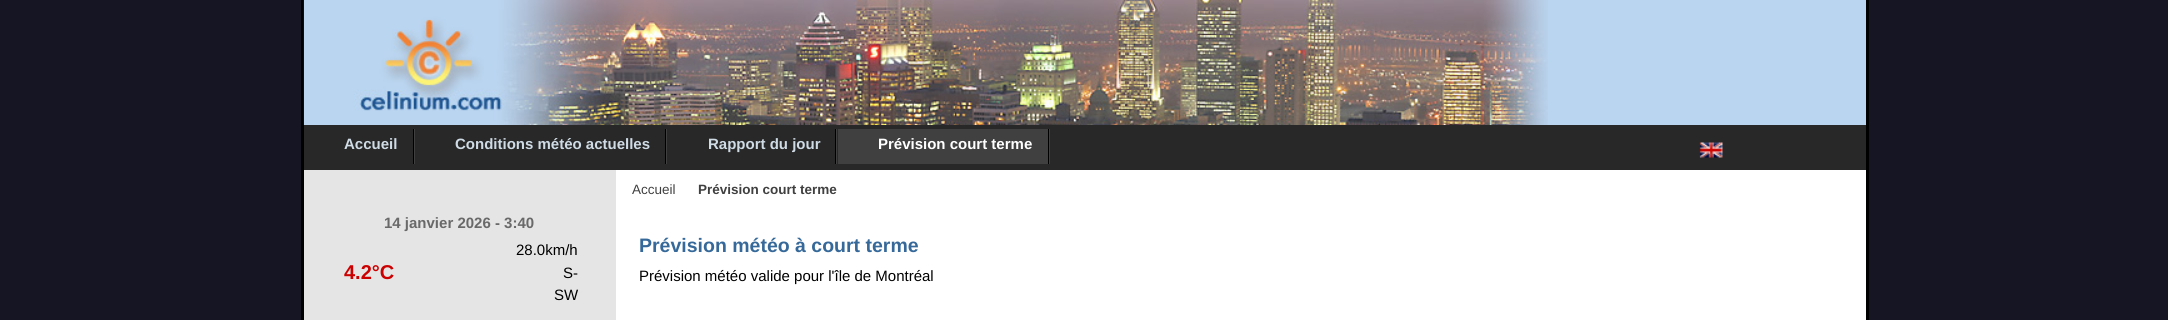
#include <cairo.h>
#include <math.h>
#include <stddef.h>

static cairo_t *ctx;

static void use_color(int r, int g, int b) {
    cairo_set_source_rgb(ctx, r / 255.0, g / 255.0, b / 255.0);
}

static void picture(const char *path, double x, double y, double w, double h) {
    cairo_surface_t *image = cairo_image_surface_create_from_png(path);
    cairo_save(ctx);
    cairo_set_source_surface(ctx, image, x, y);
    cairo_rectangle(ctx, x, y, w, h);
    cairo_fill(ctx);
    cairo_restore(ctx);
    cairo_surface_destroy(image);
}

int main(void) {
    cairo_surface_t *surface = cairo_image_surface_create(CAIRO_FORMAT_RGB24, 2168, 320);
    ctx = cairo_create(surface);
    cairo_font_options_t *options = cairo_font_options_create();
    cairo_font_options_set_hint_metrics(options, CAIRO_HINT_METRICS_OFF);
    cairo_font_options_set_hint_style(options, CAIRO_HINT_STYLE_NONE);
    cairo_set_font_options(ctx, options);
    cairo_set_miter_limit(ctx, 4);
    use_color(22, 21, 35);
    cairo_paint(ctx);
    use_color(255, 255, 255);
    cairo_rectangle(ctx, 616, 170, 1250, 150);
    cairo_fill(ctx);
    use_color(0, 0, 0);
    cairo_rectangle(ctx, 1866, 0, 3, 320);
    cairo_fill(ctx);
    cairo_rectangle(ctx, 301, 0, 3, 320);
    cairo_fill(ctx);
    use_color(186, 213, 240);
    cairo_rectangle(ctx, 1548, 0, 318, 125);
    cairo_fill(ctx);
    picture("img1.png", 303, 0, 1245, 125);
    use_color(40, 40, 40);
    cairo_rectangle(ctx, 304, 125, 1562, 45);
    cairo_fill(ctx);
    use_color(64, 64, 64);
    cairo_rectangle(ctx, 414, 129, 1, 35);
    cairo_fill(ctx);
    use_color(0, 0, 0);
    cairo_rectangle(ctx, 413, 129, 1, 35);
    cairo_fill(ctx);
    cairo_select_font_face(ctx, "Liberation Sans", CAIRO_FONT_SLANT_NORMAL, CAIRO_FONT_WEIGHT_BOLD);
    cairo_set_font_size(ctx, 15);
    use_color(207, 219, 229);
    cairo_move_to(ctx, 344, 149);
    cairo_show_text(ctx, "Accueil");
    use_color(64, 64, 64);
    cairo_rectangle(ctx, 666, 129, 1, 35);
    cairo_fill(ctx);
    use_color(0, 0, 0);
    cairo_rectangle(ctx, 665, 129, 1, 35);
    cairo_fill(ctx);
    use_color(207, 219, 229);
    cairo_move_to(ctx, 455, 149);
    cairo_show_text(ctx, "Conditions météo actuelles");
    use_color(64, 64, 64);
    cairo_rectangle(ctx, 836, 129, 1, 35);
    cairo_fill(ctx);
    use_color(0, 0, 0);
    cairo_rectangle(ctx, 835, 129, 1, 35);
    cairo_fill(ctx);
    use_color(207, 219, 229);
    cairo_move_to(ctx, 708, 149);
    cairo_show_text(ctx, "Rapport du jour");
    use_color(64, 64, 64);
    cairo_rectangle(ctx, 1049, 129, 1, 35);
    cairo_fill(ctx);
    cairo_rectangle(ctx, 838, 129, 210, 35);
    cairo_fill(ctx);
    use_color(0, 0, 0);
    cairo_rectangle(ctx, 1048, 129, 1, 35);
    cairo_fill(ctx);
    use_color(255, 255, 255);
    cairo_move_to(ctx, 878, 149);
    cairo_show_text(ctx, "Prévision court terme");
    picture("img2.png", 1699, 142, 24, 16);
    use_color(229, 229, 229);
    cairo_rectangle(ctx, 304, 170, 312, 150);
    cairo_fill(ctx);
    use_color(105, 105, 105);
    cairo_move_to(ctx, 384, 228);
    cairo_show_text(ctx, "14 janvier 2026 - 3:40");
    cairo_set_font_size(ctx, 20);
    use_color(204, 0, 0);
    cairo_move_to(ctx, 344, 279);
    cairo_show_text(ctx, "4.2°C");
    cairo_select_font_face(ctx, "Liberation Sans", CAIRO_FONT_SLANT_NORMAL, CAIRO_FONT_WEIGHT_NORMAL);
    cairo_set_font_size(ctx, 15);
    use_color(0, 0, 0);
    cairo_move_to(ctx, 516, 255);
    cairo_show_text(ctx, "28.0km/h");
    cairo_move_to(ctx, 563, 278);
    cairo_show_text(ctx, "S-");
    cairo_move_to(ctx, 554, 300);
    cairo_show_text(ctx, "SW");
    cairo_set_font_size(ctx, 13.5);
    use_color(64, 64, 64);
    cairo_move_to(ctx, 632, 194);
    cairo_show_text(ctx, "Accueil");
    cairo_select_font_face(ctx, "Liberation Sans", CAIRO_FONT_SLANT_NORMAL, CAIRO_FONT_WEIGHT_BOLD);
    cairo_move_to(ctx, 698, 194);
    cairo_show_text(ctx, "Prévision court terme");
    cairo_set_font_size(ctx, 19.5);
    use_color(54, 105, 153);
    cairo_move_to(ctx, 639, 252);
    cairo_show_text(ctx, "Prévision météo à court terme");
    cairo_select_font_face(ctx, "Liberation Sans", CAIRO_FONT_SLANT_NORMAL, CAIRO_FONT_WEIGHT_NORMAL);
    cairo_set_font_size(ctx, 15);
    use_color(0, 0, 0);
    cairo_move_to(ctx, 639, 281);
    cairo_show_text(ctx, "Prévision météo valide pour l'île de Montréal");
    cairo_surface_write_to_png(surface, "result.png");
    cairo_font_options_destroy(options);
    cairo_destroy(ctx);
    cairo_surface_destroy(surface);
    return 0;
}
